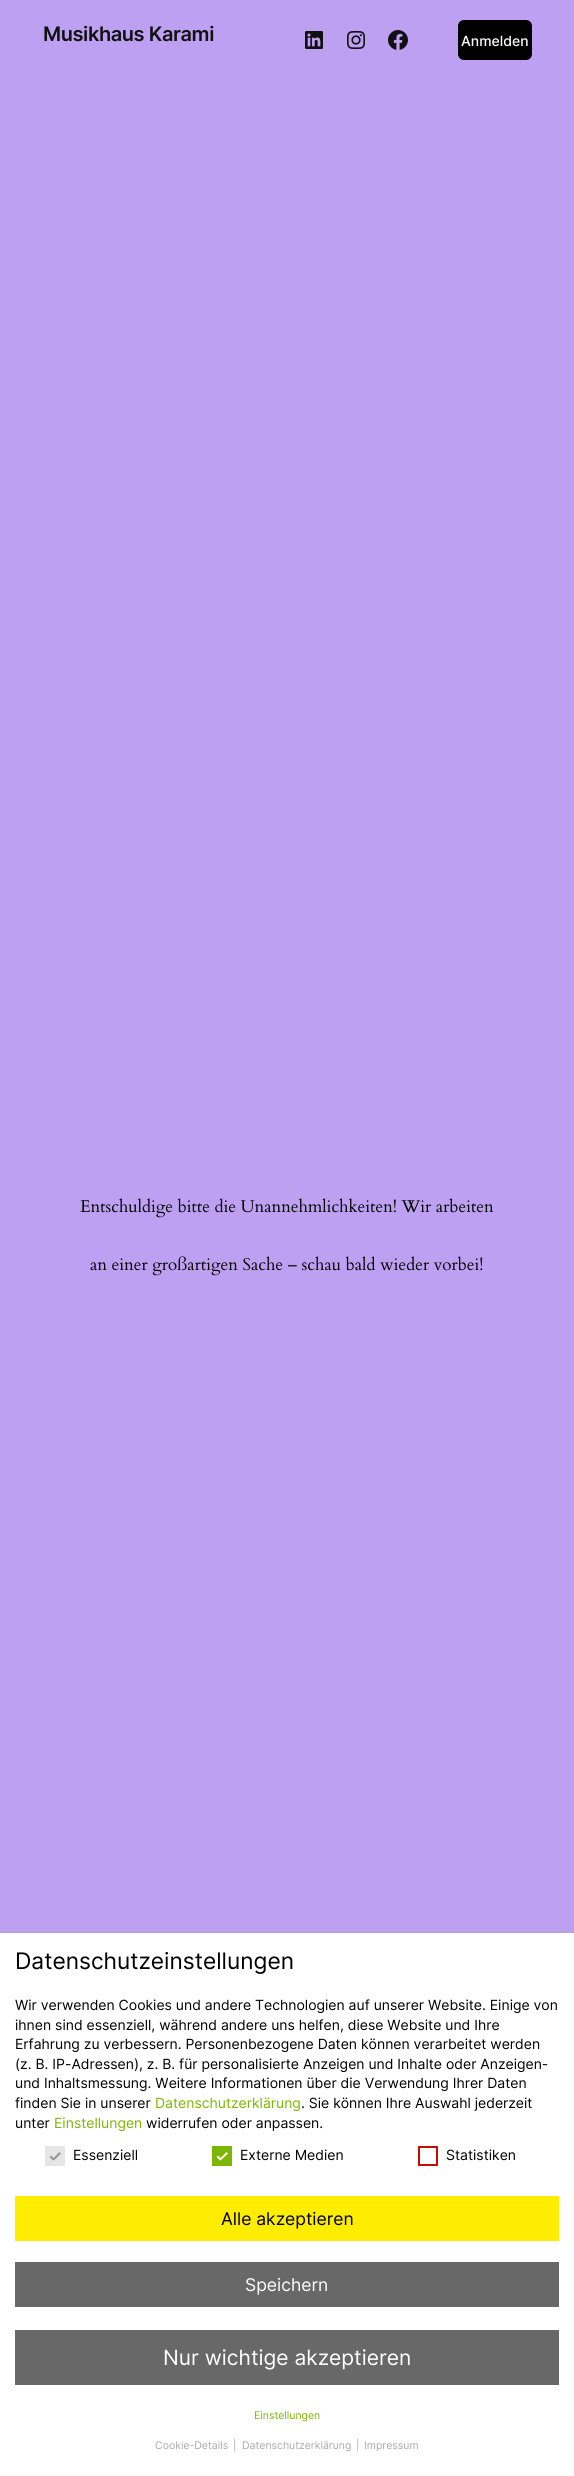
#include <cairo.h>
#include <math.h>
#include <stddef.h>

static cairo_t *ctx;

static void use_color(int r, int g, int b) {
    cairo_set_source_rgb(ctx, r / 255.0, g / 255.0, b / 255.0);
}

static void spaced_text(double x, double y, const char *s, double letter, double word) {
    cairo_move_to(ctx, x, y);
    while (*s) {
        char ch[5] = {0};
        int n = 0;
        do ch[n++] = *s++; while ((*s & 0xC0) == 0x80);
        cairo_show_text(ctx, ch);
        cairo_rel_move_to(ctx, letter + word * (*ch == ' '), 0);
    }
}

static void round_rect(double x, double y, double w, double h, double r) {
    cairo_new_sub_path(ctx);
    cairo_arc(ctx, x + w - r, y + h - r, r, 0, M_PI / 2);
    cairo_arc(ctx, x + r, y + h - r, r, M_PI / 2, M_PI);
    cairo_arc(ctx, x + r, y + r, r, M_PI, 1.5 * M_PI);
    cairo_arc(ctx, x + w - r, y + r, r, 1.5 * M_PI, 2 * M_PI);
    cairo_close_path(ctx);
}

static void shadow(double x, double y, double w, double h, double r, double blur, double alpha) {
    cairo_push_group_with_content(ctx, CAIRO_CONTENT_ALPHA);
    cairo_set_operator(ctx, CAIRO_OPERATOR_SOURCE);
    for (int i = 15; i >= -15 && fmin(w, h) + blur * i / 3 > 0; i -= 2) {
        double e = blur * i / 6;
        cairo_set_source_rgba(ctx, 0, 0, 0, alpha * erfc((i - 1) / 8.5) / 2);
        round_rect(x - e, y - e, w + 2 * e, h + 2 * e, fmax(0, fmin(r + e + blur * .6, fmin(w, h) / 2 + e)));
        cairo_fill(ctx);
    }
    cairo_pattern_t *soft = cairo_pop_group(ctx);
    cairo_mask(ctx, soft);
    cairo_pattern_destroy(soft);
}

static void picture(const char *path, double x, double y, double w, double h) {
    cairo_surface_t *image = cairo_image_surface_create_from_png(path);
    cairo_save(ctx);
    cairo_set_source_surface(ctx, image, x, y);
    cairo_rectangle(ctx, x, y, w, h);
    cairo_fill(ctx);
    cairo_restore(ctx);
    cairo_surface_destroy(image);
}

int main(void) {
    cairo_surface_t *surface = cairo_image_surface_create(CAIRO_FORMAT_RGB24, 574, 2476);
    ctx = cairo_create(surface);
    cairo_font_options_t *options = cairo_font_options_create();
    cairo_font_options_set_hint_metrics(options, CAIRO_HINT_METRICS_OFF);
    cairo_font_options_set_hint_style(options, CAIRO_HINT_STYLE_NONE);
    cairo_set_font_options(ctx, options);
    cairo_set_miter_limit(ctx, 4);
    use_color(190, 160, 242);
    cairo_paint(ctx);
    cairo_select_font_face(ctx, "Inter SemiBold", CAIRO_FONT_SLANT_NORMAL, CAIRO_FONT_WEIGHT_NORMAL);
    cairo_set_font_size(ctx, 20);
    use_color(17, 17, 17);
    spaced_text(43, 41, "Musikhaus Karami", -0.4, 0);
    picture("img1.png", 305, 31, 18, 18);
    picture("img2.png", 347, 31, 18, 18);
    picture("img3.png", 388, 30, 20, 20);
    use_color(0, 0, 0);
    round_rect(458, 20, 74, 40, 6);
    cairo_fill(ctx);
    cairo_select_font_face(ctx, "Inter Medium", CAIRO_FONT_SLANT_NORMAL, CAIRO_FONT_WEIGHT_NORMAL);
    cairo_set_font_size(ctx, 14);
    use_color(255, 255, 255);
    cairo_move_to(ctx, 461, 46);
    cairo_show_text(ctx, "Anmelden");
    picture("img4.png", 80, 1198, 414, 20);
    picture("img5.png", 90, 1256, 393, 20);
    use_color(0, 0, 0);
    shadow(0, 1937, 574, 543, 0, 4, 0.2);
    use_color(255, 255, 255);
    cairo_rectangle(ctx, 0, 1933, 574, 543);
    cairo_fill(ctx);
    cairo_select_font_face(ctx, "Inter", CAIRO_FONT_SLANT_NORMAL, CAIRO_FONT_WEIGHT_NORMAL);
    cairo_set_font_size(ctx, 22.75);
    use_color(0, 0, 0);
    cairo_move_to(ctx, 15, 1969);
    cairo_show_text(ctx, "Datenschutzeinstellungen");
    cairo_set_font_size(ctx, 14);
    cairo_move_to(ctx, 15, 2010);
    cairo_show_text(ctx, "Wir verwenden Cookies und andere Technologien auf unserer Website. Einige von");
    cairo_move_to(ctx, 15, 2030);
    cairo_show_text(ctx, "ihnen sind essenziell, während andere uns helfen, diese Website und Ihre");
    cairo_move_to(ctx, 15, 2049);
    cairo_show_text(ctx, "Erfahrung zu verbessern. Personenbezogene Daten können verarbeitet werden");
    cairo_move_to(ctx, 15, 2069);
    cairo_show_text(ctx, "(z. B. IP-Adressen), z. B. für personalisierte Anzeigen und Inhalte oder Anzeigen-");
    cairo_move_to(ctx, 15, 2088);
    cairo_show_text(ctx, "und Inhaltsmessung. Weitere Informationen über die Verwendung Ihrer Daten");
    cairo_move_to(ctx, 15, 2108);
    cairo_show_text(ctx, "finden Sie in unserer");
    use_color(126, 181, 0);
    cairo_move_to(ctx, 155, 2108);
    cairo_show_text(ctx, "Datenschutzerklärung");
    use_color(0, 0, 0);
    cairo_move_to(ctx, 301, 2108);
    cairo_show_text(ctx, ". Sie können Ihre Auswahl jederzeit");
    cairo_move_to(ctx, 15, 2128);
    cairo_show_text(ctx, "unter");
    use_color(126, 181, 0);
    cairo_move_to(ctx, 54, 2128);
    cairo_show_text(ctx, "Einstellungen");
    use_color(0, 0, 0);
    cairo_move_to(ctx, 146, 2128);
    cairo_show_text(ctx, "widerrufen oder anpassen.");
    use_color(230, 230, 230);
    cairo_rectangle(ctx, 45, 2146, 20, 20);
    cairo_fill(ctx);
    use_color(153, 153, 153);
    cairo_new_path(ctx);
    cairo_move_to(ctx, 59.5, 2152);
    cairo_line_to(ctx, 61, 2153.5);
    cairo_line_to(ctx, 54, 2160.5);
    cairo_line_to(ctx, 52.5, 2159);
    cairo_close_path(ctx);
    cairo_fill(ctx);
    cairo_new_path(ctx);
    cairo_move_to(ctx, 51, 2155.5);
    cairo_line_to(ctx, 54.5, 2159);
    cairo_line_to(ctx, 53, 2160.5);
    cairo_line_to(ctx, 49.5, 2157);
    cairo_close_path(ctx);
    cairo_fill(ctx);
    use_color(0, 0, 0);
    cairo_move_to(ctx, 73, 2160);
    cairo_show_text(ctx, "Essenziell");
    use_color(126, 181, 0);
    cairo_rectangle(ctx, 212, 2146, 20, 20);
    cairo_fill(ctx);
    use_color(255, 255, 255);
    cairo_new_path(ctx);
    cairo_move_to(ctx, 226.5, 2152);
    cairo_line_to(ctx, 228, 2153.5);
    cairo_line_to(ctx, 220.5, 2160.5);
    cairo_line_to(ctx, 219.5, 2159);
    cairo_close_path(ctx);
    cairo_fill(ctx);
    cairo_new_path(ctx);
    cairo_move_to(ctx, 218, 2155.5);
    cairo_line_to(ctx, 221.5, 2159);
    cairo_line_to(ctx, 220, 2160.5);
    cairo_line_to(ctx, 216.5, 2157);
    cairo_close_path(ctx);
    cairo_fill(ctx);
    use_color(0, 0, 0);
    cairo_move_to(ctx, 240, 2160);
    cairo_show_text(ctx, "Externe Medien");
    cairo_rectangle(ctx, 419, 2147, 18, 18);
    use_color(204, 10, 0);
    cairo_stroke(ctx);
    use_color(0, 0, 0);
    cairo_move_to(ctx, 446, 2160);
    cairo_show_text(ctx, "Statistiken");
    use_color(255, 237, 0);
    cairo_rectangle(ctx, 15, 2196, 544, 45);
    cairo_fill(ctx);
    cairo_set_font_size(ctx, 17.5);
    use_color(0, 0, 0);
    cairo_move_to(ctx, 221, 2225);
    cairo_show_text(ctx, "Alle akzeptieren");
    use_color(104, 104, 104);
    cairo_rectangle(ctx, 15, 2262, 544, 45);
    cairo_fill(ctx);
    use_color(255, 255, 255);
    cairo_move_to(ctx, 245, 2291);
    cairo_show_text(ctx, "Speichern");
    use_color(104, 104, 104);
    cairo_rectangle(ctx, 15, 2330, 544, 55);
    cairo_fill(ctx);
    cairo_set_font_size(ctx, 21);
    use_color(255, 255, 255);
    cairo_move_to(ctx, 163, 2365);
    cairo_show_text(ctx, "Nur wichtige akzeptieren");
    cairo_set_font_size(ctx, 10.5);
    use_color(126, 181, 0);
    cairo_move_to(ctx, 254, 2419);
    cairo_show_text(ctx, "Einstellungen");
    use_color(170, 170, 170);
    cairo_move_to(ctx, 155, 2449);
    cairo_show_text(ctx, "Cookie-Details");
    cairo_move_to(ctx, 233, 2449);
    cairo_show_text(ctx, "|");
    cairo_move_to(ctx, 242, 2449);
    cairo_show_text(ctx, "Datenschutzerklärung");
    cairo_move_to(ctx, 356, 2449);
    cairo_show_text(ctx, "|");
    cairo_move_to(ctx, 364, 2449);
    cairo_show_text(ctx, "Impressum");
    cairo_surface_write_to_png(surface, "result.png");
    cairo_font_options_destroy(options);
    cairo_destroy(ctx);
    cairo_surface_destroy(surface);
    return 0;
}
